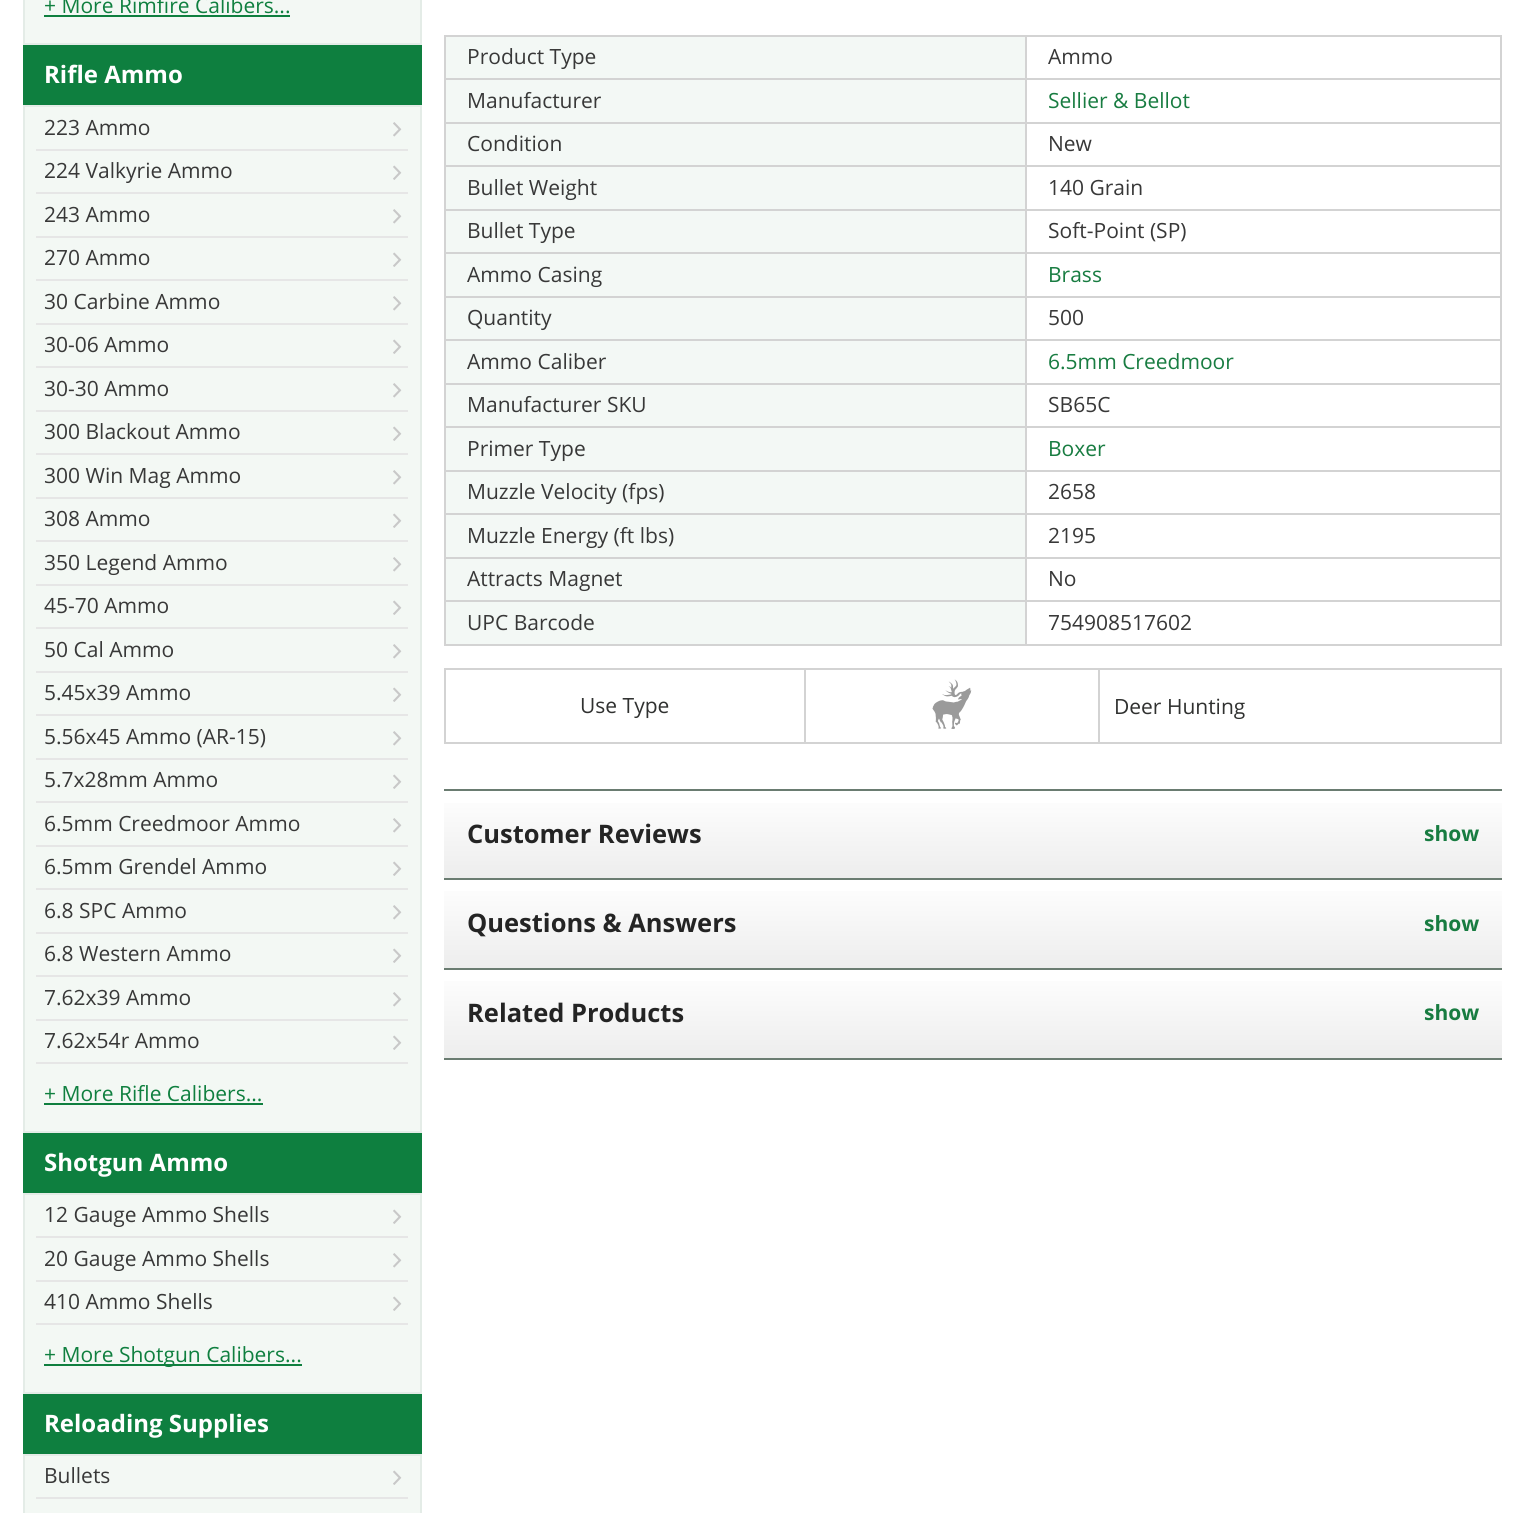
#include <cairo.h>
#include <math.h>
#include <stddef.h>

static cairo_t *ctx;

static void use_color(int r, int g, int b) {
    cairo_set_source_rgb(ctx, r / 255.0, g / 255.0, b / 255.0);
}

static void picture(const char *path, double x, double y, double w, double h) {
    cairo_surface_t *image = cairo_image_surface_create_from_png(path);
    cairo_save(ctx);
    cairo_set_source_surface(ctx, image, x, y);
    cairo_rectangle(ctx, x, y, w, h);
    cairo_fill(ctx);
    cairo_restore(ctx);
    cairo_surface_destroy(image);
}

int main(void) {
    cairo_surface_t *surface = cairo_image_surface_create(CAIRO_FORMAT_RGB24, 1523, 1513);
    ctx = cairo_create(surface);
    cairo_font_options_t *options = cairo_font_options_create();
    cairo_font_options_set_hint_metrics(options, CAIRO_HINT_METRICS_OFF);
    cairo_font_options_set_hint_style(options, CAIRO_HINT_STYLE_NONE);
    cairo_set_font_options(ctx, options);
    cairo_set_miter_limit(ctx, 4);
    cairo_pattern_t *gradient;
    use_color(255, 255, 255);
    cairo_paint(ctx);
    use_color(243, 248, 244);
    cairo_rectangle(ctx, 25, 0, 395, 1513);
    cairo_fill(ctx);
    cairo_rectangle(ctx, 24, -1, 397, 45);
    use_color(228, 236, 231);
    cairo_stroke(ctx);
    cairo_select_font_face(ctx, "Open Sans", CAIRO_FONT_SLANT_NORMAL, CAIRO_FONT_WEIGHT_NORMAL);
    cairo_set_font_size(ctx, 21);
    use_color(15, 127, 63);
    cairo_move_to(ctx, 44, 13);
    cairo_show_text(ctx, "+ More Rimfire Calibers...");
    cairo_rectangle(ctx, 44, 15, 246, 2);
    cairo_fill(ctx);
    use_color(14, 127, 63);
    cairo_rectangle(ctx, 23, 45, 399, 60);
    cairo_fill(ctx);
    cairo_select_font_face(ctx, "Open Sans", CAIRO_FONT_SLANT_NORMAL, CAIRO_FONT_WEIGHT_BOLD);
    cairo_set_font_size(ctx, 24);
    use_color(255, 255, 255);
    cairo_move_to(ctx, 44, 83);
    cairo_show_text(ctx, "Rifle Ammo");
    cairo_rectangle(ctx, 24, 106, 397, 1026);
    use_color(228, 236, 231);
    cairo_stroke(ctx);
    use_color(230, 230, 230);
    cairo_rectangle(ctx, 36, 149, 372, 2);
    cairo_fill(ctx);
    cairo_select_font_face(ctx, "Open Sans", CAIRO_FONT_SLANT_NORMAL, CAIRO_FONT_WEIGHT_NORMAL);
    cairo_set_font_size(ctx, 21);
    use_color(56, 56, 56);
    cairo_move_to(ctx, 44, 135);
    cairo_show_text(ctx, "223 Ammo");
    picture("img1.png", 393, 122, 9, 15);
    use_color(230, 230, 230);
    cairo_rectangle(ctx, 36, 192, 372, 2);
    cairo_fill(ctx);
    use_color(56, 56, 56);
    cairo_move_to(ctx, 44, 178);
    cairo_show_text(ctx, "224 Valkyrie Ammo");
    picture("img2.png", 393, 165, 9, 15);
    use_color(230, 230, 230);
    cairo_rectangle(ctx, 36, 236, 372, 2);
    cairo_fill(ctx);
    use_color(56, 56, 56);
    cairo_move_to(ctx, 44, 222);
    cairo_show_text(ctx, "243 Ammo");
    picture("img1.png", 393, 209, 9, 15);
    use_color(230, 230, 230);
    cairo_rectangle(ctx, 36, 279, 372, 2);
    cairo_fill(ctx);
    use_color(56, 56, 56);
    cairo_move_to(ctx, 44, 265);
    cairo_show_text(ctx, "270 Ammo");
    picture("img2.png", 393, 252, 9, 15);
    use_color(230, 230, 230);
    cairo_rectangle(ctx, 36, 323, 372, 2);
    cairo_fill(ctx);
    use_color(56, 56, 56);
    cairo_move_to(ctx, 44, 309);
    cairo_show_text(ctx, "30 Carbine Ammo");
    picture("img1.png", 393, 296, 9, 15);
    use_color(230, 230, 230);
    cairo_rectangle(ctx, 36, 366, 372, 2);
    cairo_fill(ctx);
    use_color(56, 56, 56);
    cairo_move_to(ctx, 44, 352);
    cairo_show_text(ctx, "30-06 Ammo");
    picture("img2.png", 393, 339, 9, 15);
    use_color(230, 230, 230);
    cairo_rectangle(ctx, 36, 410, 372, 2);
    cairo_fill(ctx);
    use_color(56, 56, 56);
    cairo_move_to(ctx, 44, 396);
    cairo_show_text(ctx, "30-30 Ammo");
    picture("img1.png", 393, 383, 9, 15);
    use_color(230, 230, 230);
    cairo_rectangle(ctx, 36, 453, 372, 2);
    cairo_fill(ctx);
    use_color(56, 56, 56);
    cairo_move_to(ctx, 44, 439);
    cairo_show_text(ctx, "300 Blackout Ammo");
    picture("img2.png", 393, 426, 9, 15);
    use_color(230, 230, 230);
    cairo_rectangle(ctx, 36, 497, 372, 2);
    cairo_fill(ctx);
    use_color(56, 56, 56);
    cairo_move_to(ctx, 44, 483);
    cairo_show_text(ctx, "300 Win Mag Ammo");
    picture("img1.png", 393, 470, 9, 15);
    use_color(230, 230, 230);
    cairo_rectangle(ctx, 36, 540, 372, 2);
    cairo_fill(ctx);
    use_color(56, 56, 56);
    cairo_move_to(ctx, 44, 526);
    cairo_show_text(ctx, "308 Ammo");
    picture("img2.png", 393, 513, 9, 15);
    use_color(230, 230, 230);
    cairo_rectangle(ctx, 36, 584, 372, 2);
    cairo_fill(ctx);
    use_color(56, 56, 56);
    cairo_move_to(ctx, 44, 570);
    cairo_show_text(ctx, "350 Legend Ammo");
    picture("img1.png", 393, 557, 9, 15);
    use_color(230, 230, 230);
    cairo_rectangle(ctx, 36, 627, 372, 2);
    cairo_fill(ctx);
    use_color(56, 56, 56);
    cairo_move_to(ctx, 44, 613);
    cairo_show_text(ctx, "45-70 Ammo");
    picture("img2.png", 393, 600, 9, 15);
    use_color(230, 230, 230);
    cairo_rectangle(ctx, 36, 671, 372, 2);
    cairo_fill(ctx);
    use_color(56, 56, 56);
    cairo_move_to(ctx, 44, 657);
    cairo_show_text(ctx, "50 Cal Ammo");
    picture("img1.png", 393, 644, 9, 15);
    use_color(230, 230, 230);
    cairo_rectangle(ctx, 36, 714, 372, 2);
    cairo_fill(ctx);
    use_color(56, 56, 56);
    cairo_move_to(ctx, 44, 700);
    cairo_show_text(ctx, "5.45x39 Ammo");
    picture("img2.png", 393, 687, 9, 15);
    use_color(230, 230, 230);
    cairo_rectangle(ctx, 36, 758, 372, 2);
    cairo_fill(ctx);
    use_color(56, 56, 56);
    cairo_move_to(ctx, 44, 744);
    cairo_show_text(ctx, "5.56x45 Ammo (AR-15)");
    picture("img1.png", 393, 731, 9, 15);
    use_color(230, 230, 230);
    cairo_rectangle(ctx, 36, 801, 372, 2);
    cairo_fill(ctx);
    use_color(56, 56, 56);
    cairo_move_to(ctx, 44, 787);
    cairo_show_text(ctx, "5.7x28mm Ammo");
    picture("img2.png", 393, 774, 9, 15);
    use_color(230, 230, 230);
    cairo_rectangle(ctx, 36, 845, 372, 2);
    cairo_fill(ctx);
    use_color(56, 56, 56);
    cairo_move_to(ctx, 44, 831);
    cairo_show_text(ctx, "6.5mm Creedmoor Ammo");
    picture("img1.png", 393, 818, 9, 15);
    use_color(230, 230, 230);
    cairo_rectangle(ctx, 36, 888, 372, 2);
    cairo_fill(ctx);
    use_color(56, 56, 56);
    cairo_move_to(ctx, 44, 874);
    cairo_show_text(ctx, "6.5mm Grendel Ammo");
    picture("img2.png", 393, 861, 9, 15);
    use_color(230, 230, 230);
    cairo_rectangle(ctx, 36, 932, 372, 2);
    cairo_fill(ctx);
    use_color(56, 56, 56);
    cairo_move_to(ctx, 44, 918);
    cairo_show_text(ctx, "6.8 SPC Ammo");
    picture("img1.png", 393, 905, 9, 15);
    use_color(230, 230, 230);
    cairo_rectangle(ctx, 36, 975, 372, 2);
    cairo_fill(ctx);
    use_color(56, 56, 56);
    cairo_move_to(ctx, 44, 961);
    cairo_show_text(ctx, "6.8 Western Ammo");
    picture("img2.png", 393, 948, 9, 15);
    use_color(230, 230, 230);
    cairo_rectangle(ctx, 36, 1019, 372, 2);
    cairo_fill(ctx);
    use_color(56, 56, 56);
    cairo_move_to(ctx, 44, 1005);
    cairo_show_text(ctx, "7.62x39 Ammo");
    picture("img1.png", 393, 992, 9, 15);
    use_color(230, 230, 230);
    cairo_rectangle(ctx, 36, 1062, 372, 2);
    cairo_fill(ctx);
    use_color(56, 56, 56);
    cairo_move_to(ctx, 44, 1048);
    cairo_show_text(ctx, "7.62x54r Ammo");
    picture("img2.png", 393, 1035, 9, 15);
    use_color(15, 127, 63);
    cairo_move_to(ctx, 44, 1101);
    cairo_show_text(ctx, "+ More Rifle Calibers...");
    cairo_rectangle(ctx, 44, 1103, 219, 2);
    cairo_fill(ctx);
    use_color(14, 127, 63);
    cairo_rectangle(ctx, 23, 1133, 399, 60);
    cairo_fill(ctx);
    cairo_select_font_face(ctx, "Open Sans", CAIRO_FONT_SLANT_NORMAL, CAIRO_FONT_WEIGHT_BOLD);
    cairo_set_font_size(ctx, 24);
    use_color(255, 255, 255);
    cairo_move_to(ctx, 44, 1171);
    cairo_show_text(ctx, "Shotgun Ammo");
    cairo_rectangle(ctx, 24, 1194, 397, 199);
    use_color(228, 236, 231);
    cairo_stroke(ctx);
    use_color(230, 230, 230);
    cairo_rectangle(ctx, 36, 1236, 372, 2);
    cairo_fill(ctx);
    cairo_select_font_face(ctx, "Open Sans", CAIRO_FONT_SLANT_NORMAL, CAIRO_FONT_WEIGHT_NORMAL);
    cairo_set_font_size(ctx, 21);
    use_color(56, 56, 56);
    cairo_move_to(ctx, 44, 1222);
    cairo_show_text(ctx, "12 Gauge Ammo Shells");
    picture("img2.png", 393, 1209, 9, 15);
    use_color(230, 230, 230);
    cairo_rectangle(ctx, 36, 1280, 372, 2);
    cairo_fill(ctx);
    use_color(56, 56, 56);
    cairo_move_to(ctx, 44, 1266);
    cairo_show_text(ctx, "20 Gauge Ammo Shells");
    picture("img1.png", 393, 1253, 9, 15);
    use_color(230, 230, 230);
    cairo_rectangle(ctx, 36, 1323, 372, 2);
    cairo_fill(ctx);
    use_color(56, 56, 56);
    cairo_move_to(ctx, 44, 1309);
    cairo_show_text(ctx, "410 Ammo Shells");
    picture("img2.png", 393, 1296, 9, 15);
    use_color(15, 127, 63);
    cairo_rectangle(ctx, 44, 1364, 258, 2);
    cairo_fill(ctx);
    cairo_move_to(ctx, 44, 1362);
    cairo_show_text(ctx, "+ More Shotgun Calibers...");
    use_color(14, 127, 63);
    cairo_rectangle(ctx, 23, 1394, 399, 60);
    cairo_fill(ctx);
    cairo_select_font_face(ctx, "Open Sans", CAIRO_FONT_SLANT_NORMAL, CAIRO_FONT_WEIGHT_BOLD);
    cairo_set_font_size(ctx, 24);
    use_color(255, 255, 255);
    cairo_move_to(ctx, 44, 1432);
    cairo_show_text(ctx, "Reloading Supplies");
    cairo_rectangle(ctx, 24, 1455, 397, 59);
    use_color(228, 236, 231);
    cairo_stroke(ctx);
    use_color(230, 230, 230);
    cairo_rectangle(ctx, 36, 1497, 372, 2);
    cairo_fill(ctx);
    cairo_select_font_face(ctx, "Open Sans", CAIRO_FONT_SLANT_NORMAL, CAIRO_FONT_WEIGHT_NORMAL);
    cairo_set_font_size(ctx, 21);
    use_color(56, 56, 56);
    cairo_move_to(ctx, 44, 1483);
    cairo_show_text(ctx, "Bullets");
    picture("img2.png", 393, 1470, 9, 15);
    use_color(211, 211, 211);
    cairo_rectangle(ctx, 444, 35, 1058, 2);
    cairo_fill(ctx);
    cairo_rectangle(ctx, 1500, 35, 2, 610);
    cairo_fill(ctx);
    cairo_rectangle(ctx, 444, 644, 1058, 2);
    cairo_fill(ctx);
    cairo_rectangle(ctx, 444, 35, 2, 610);
    cairo_fill(ctx);
    use_color(243, 248, 245);
    cairo_rectangle(ctx, 446, 37, 579, 41);
    cairo_fill(ctx);
    use_color(56, 56, 56);
    cairo_move_to(ctx, 467, 64);
    cairo_show_text(ctx, "Product Type");
    use_color(211, 211, 211);
    cairo_rectangle(ctx, 1025, 78, 477, 2);
    cairo_fill(ctx);
    cairo_rectangle(ctx, 1025, 122, 477, 2);
    cairo_fill(ctx);
    cairo_rectangle(ctx, 1025, 165, 477, 2);
    cairo_fill(ctx);
    cairo_rectangle(ctx, 1025, 209, 477, 2);
    cairo_fill(ctx);
    cairo_rectangle(ctx, 1025, 252, 477, 2);
    cairo_fill(ctx);
    cairo_rectangle(ctx, 1025, 296, 477, 2);
    cairo_fill(ctx);
    cairo_rectangle(ctx, 1025, 339, 477, 2);
    cairo_fill(ctx);
    cairo_rectangle(ctx, 1025, 383, 477, 2);
    cairo_fill(ctx);
    cairo_rectangle(ctx, 1025, 426, 477, 2);
    cairo_fill(ctx);
    cairo_rectangle(ctx, 1025, 470, 477, 2);
    cairo_fill(ctx);
    cairo_rectangle(ctx, 1025, 513, 477, 2);
    cairo_fill(ctx);
    cairo_rectangle(ctx, 1025, 557, 477, 2);
    cairo_fill(ctx);
    cairo_rectangle(ctx, 1025, 600, 477, 2);
    cairo_fill(ctx);
    cairo_rectangle(ctx, 1025, 600, 2, 45);
    cairo_fill(ctx);
    cairo_rectangle(ctx, 444, 600, 582, 2);
    cairo_fill(ctx);
    cairo_rectangle(ctx, 1025, 557, 2, 45);
    cairo_fill(ctx);
    cairo_rectangle(ctx, 444, 557, 582, 2);
    cairo_fill(ctx);
    cairo_rectangle(ctx, 1025, 513, 2, 45);
    cairo_fill(ctx);
    cairo_rectangle(ctx, 444, 513, 582, 2);
    cairo_fill(ctx);
    cairo_rectangle(ctx, 1025, 470, 2, 45);
    cairo_fill(ctx);
    cairo_rectangle(ctx, 444, 470, 582, 2);
    cairo_fill(ctx);
    cairo_rectangle(ctx, 1025, 426, 2, 45);
    cairo_fill(ctx);
    cairo_rectangle(ctx, 444, 426, 582, 2);
    cairo_fill(ctx);
    cairo_rectangle(ctx, 1025, 383, 2, 45);
    cairo_fill(ctx);
    cairo_rectangle(ctx, 444, 383, 582, 2);
    cairo_fill(ctx);
    cairo_rectangle(ctx, 1025, 339, 2, 45);
    cairo_fill(ctx);
    cairo_rectangle(ctx, 444, 339, 582, 2);
    cairo_fill(ctx);
    cairo_rectangle(ctx, 1025, 296, 2, 45);
    cairo_fill(ctx);
    cairo_rectangle(ctx, 444, 296, 582, 2);
    cairo_fill(ctx);
    cairo_rectangle(ctx, 1025, 252, 2, 45);
    cairo_fill(ctx);
    cairo_rectangle(ctx, 444, 252, 582, 2);
    cairo_fill(ctx);
    cairo_rectangle(ctx, 1025, 209, 2, 45);
    cairo_fill(ctx);
    cairo_rectangle(ctx, 444, 209, 582, 2);
    cairo_fill(ctx);
    cairo_rectangle(ctx, 1025, 165, 2, 45);
    cairo_fill(ctx);
    cairo_rectangle(ctx, 444, 165, 582, 2);
    cairo_fill(ctx);
    cairo_rectangle(ctx, 1025, 122, 2, 45);
    cairo_fill(ctx);
    cairo_rectangle(ctx, 444, 122, 582, 2);
    cairo_fill(ctx);
    cairo_rectangle(ctx, 1025, 78, 2, 45);
    cairo_fill(ctx);
    cairo_rectangle(ctx, 444, 78, 582, 2);
    cairo_fill(ctx);
    cairo_rectangle(ctx, 1025, 35, 2, 45);
    cairo_fill(ctx);
    use_color(56, 56, 56);
    cairo_move_to(ctx, 1048, 64);
    cairo_show_text(ctx, "Ammo");
    use_color(243, 248, 245);
    cairo_rectangle(ctx, 446, 80, 579, 42);
    cairo_fill(ctx);
    use_color(56, 56, 56);
    cairo_move_to(ctx, 467, 108);
    cairo_show_text(ctx, "Manufacturer");
    use_color(24, 124, 65);
    cairo_move_to(ctx, 1048, 108);
    cairo_show_text(ctx, "Sellier & Bellot");
    use_color(243, 248, 245);
    cairo_rectangle(ctx, 446, 124, 579, 41);
    cairo_fill(ctx);
    use_color(56, 56, 56);
    cairo_move_to(ctx, 467, 151);
    cairo_show_text(ctx, "Condition");
    cairo_move_to(ctx, 1048, 151);
    cairo_show_text(ctx, "New");
    use_color(243, 248, 245);
    cairo_rectangle(ctx, 446, 167, 579, 42);
    cairo_fill(ctx);
    use_color(56, 56, 56);
    cairo_move_to(ctx, 467, 195);
    cairo_show_text(ctx, "Bullet Weight");
    cairo_move_to(ctx, 1048, 195);
    cairo_show_text(ctx, "140 Grain");
    use_color(243, 248, 245);
    cairo_rectangle(ctx, 446, 211, 579, 41);
    cairo_fill(ctx);
    use_color(56, 56, 56);
    cairo_move_to(ctx, 467, 238);
    cairo_show_text(ctx, "Bullet Type");
    cairo_move_to(ctx, 1048, 238);
    cairo_show_text(ctx, "Soft-Point (SP)");
    use_color(243, 248, 245);
    cairo_rectangle(ctx, 446, 254, 579, 42);
    cairo_fill(ctx);
    use_color(56, 56, 56);
    cairo_move_to(ctx, 467, 282);
    cairo_show_text(ctx, "Ammo Casing");
    use_color(24, 124, 65);
    cairo_move_to(ctx, 1048, 282);
    cairo_show_text(ctx, "Brass");
    use_color(243, 248, 245);
    cairo_rectangle(ctx, 446, 298, 579, 41);
    cairo_fill(ctx);
    use_color(56, 56, 56);
    cairo_move_to(ctx, 467, 325);
    cairo_show_text(ctx, "Quantity");
    cairo_move_to(ctx, 1048, 325);
    cairo_show_text(ctx, "500");
    use_color(243, 248, 245);
    cairo_rectangle(ctx, 446, 341, 579, 42);
    cairo_fill(ctx);
    use_color(56, 56, 56);
    cairo_move_to(ctx, 467, 369);
    cairo_show_text(ctx, "Ammo Caliber");
    use_color(24, 124, 65);
    cairo_move_to(ctx, 1048, 369);
    cairo_show_text(ctx, "6.5mm Creedmoor");
    use_color(243, 248, 245);
    cairo_rectangle(ctx, 446, 385, 579, 41);
    cairo_fill(ctx);
    use_color(56, 56, 56);
    cairo_move_to(ctx, 467, 412);
    cairo_show_text(ctx, "Manufacturer SKU");
    cairo_move_to(ctx, 1048, 412);
    cairo_show_text(ctx, "SB65C");
    use_color(243, 248, 245);
    cairo_rectangle(ctx, 446, 428, 579, 42);
    cairo_fill(ctx);
    use_color(56, 56, 56);
    cairo_move_to(ctx, 467, 456);
    cairo_show_text(ctx, "Primer Type");
    use_color(24, 124, 65);
    cairo_move_to(ctx, 1048, 456);
    cairo_show_text(ctx, "Boxer");
    use_color(243, 248, 245);
    cairo_rectangle(ctx, 446, 472, 579, 41);
    cairo_fill(ctx);
    use_color(56, 56, 56);
    cairo_move_to(ctx, 467, 499);
    cairo_show_text(ctx, "Muzzle Velocity (fps)");
    cairo_move_to(ctx, 1048, 499);
    cairo_show_text(ctx, "2658");
    use_color(243, 248, 245);
    cairo_rectangle(ctx, 446, 515, 579, 42);
    cairo_fill(ctx);
    use_color(56, 56, 56);
    cairo_move_to(ctx, 467, 543);
    cairo_show_text(ctx, "Muzzle Energy (ft lbs)");
    cairo_move_to(ctx, 1048, 543);
    cairo_show_text(ctx, "2195");
    use_color(243, 248, 245);
    cairo_rectangle(ctx, 446, 559, 579, 41);
    cairo_fill(ctx);
    use_color(56, 56, 56);
    cairo_move_to(ctx, 467, 586);
    cairo_show_text(ctx, "Attracts Magnet");
    cairo_move_to(ctx, 1048, 586);
    cairo_show_text(ctx, "No");
    use_color(243, 248, 245);
    cairo_rectangle(ctx, 446, 602, 579, 42);
    cairo_fill(ctx);
    use_color(56, 56, 56);
    cairo_move_to(ctx, 467, 630);
    cairo_show_text(ctx, "UPC Barcode");
    cairo_move_to(ctx, 1048, 630);
    cairo_show_text(ctx, "754908517602");
    cairo_rectangle(ctx, 445, 669, 1056, 74);
    use_color(211, 211, 211);
    cairo_stroke(ctx);
    use_color(48, 49, 48);
    cairo_move_to(ctx, 580, 713);
    cairo_show_text(ctx, "Use Type");
    use_color(211, 211, 211);
    cairo_rectangle(ctx, 804, 669, 2, 74);
    cairo_fill(ctx);
    picture("img3.png", 932, 679, 40, 50);
    cairo_rectangle(ctx, 1098, 669, 2, 74);
    cairo_fill(ctx);
    use_color(48, 49, 48);
    cairo_move_to(ctx, 1114, 714);
    cairo_show_text(ctx, "Deer Hunting");
    gradient = cairo_pattern_create_linear(973, 791, 973, 878);
    cairo_pattern_add_color_stop_rgba(gradient, 0, 1, 1, 1, 1);
    cairo_pattern_add_color_stop_rgba(gradient, 1, 0.929, 0.929, 0.929, 1);
    cairo_set_source(ctx, gradient);
    cairo_pattern_destroy(gradient);
    cairo_rectangle(ctx, 444, 803, 1058, 75);
    cairo_fill(ctx);
    use_color(106, 124, 113);
    cairo_rectangle(ctx, 444, 789, 1058, 2);
    cairo_fill(ctx);
    cairo_select_font_face(ctx, "Open Sans", CAIRO_FONT_SLANT_NORMAL, CAIRO_FONT_WEIGHT_BOLD);
    cairo_set_font_size(ctx, 25.5);
    use_color(36, 36, 36);
    cairo_move_to(ctx, 467, 843);
    cairo_show_text(ctx, "Customer Reviews");
    cairo_set_font_size(ctx, 21);
    use_color(24, 124, 65);
    cairo_move_to(ctx, 1424, 841);
    cairo_show_text(ctx, "show");
    gradient = cairo_pattern_create_linear(973, 879, 973, 968);
    cairo_pattern_add_color_stop_rgba(gradient, 0, 1, 1, 1, 1);
    cairo_pattern_add_color_stop_rgba(gradient, 1, 0.929, 0.929, 0.929, 1);
    cairo_set_source(ctx, gradient);
    cairo_pattern_destroy(gradient);
    cairo_rectangle(ctx, 444, 891, 1058, 77);
    cairo_fill(ctx);
    use_color(106, 124, 113);
    cairo_rectangle(ctx, 444, 878, 1058, 2);
    cairo_fill(ctx);
    cairo_set_font_size(ctx, 25.5);
    use_color(36, 36, 36);
    cairo_move_to(ctx, 467, 932);
    cairo_show_text(ctx, "Questions & Answers");
    cairo_set_font_size(ctx, 21);
    use_color(24, 124, 65);
    cairo_move_to(ctx, 1424, 931);
    cairo_show_text(ctx, "show");
    gradient = cairo_pattern_create_linear(973, 969, 973, 1058);
    cairo_pattern_add_color_stop_rgba(gradient, 0, 1, 1, 1, 1);
    cairo_pattern_add_color_stop_rgba(gradient, 1, 0.929, 0.929, 0.929, 1);
    cairo_set_source(ctx, gradient);
    cairo_pattern_destroy(gradient);
    cairo_rectangle(ctx, 444, 981, 1058, 77);
    cairo_fill(ctx);
    use_color(106, 124, 113);
    cairo_rectangle(ctx, 444, 968, 1058, 2);
    cairo_fill(ctx);
    cairo_rectangle(ctx, 444, 1058, 1058, 2);
    cairo_fill(ctx);
    cairo_set_font_size(ctx, 25.5);
    use_color(36, 36, 36);
    cairo_move_to(ctx, 467, 1022);
    cairo_show_text(ctx, "Related Products");
    cairo_set_font_size(ctx, 21);
    use_color(24, 124, 65);
    cairo_move_to(ctx, 1424, 1020);
    cairo_show_text(ctx, "show");
    cairo_surface_write_to_png(surface, "result.png");
    cairo_font_options_destroy(options);
    cairo_destroy(ctx);
    cairo_surface_destroy(surface);
    return 0;
}
